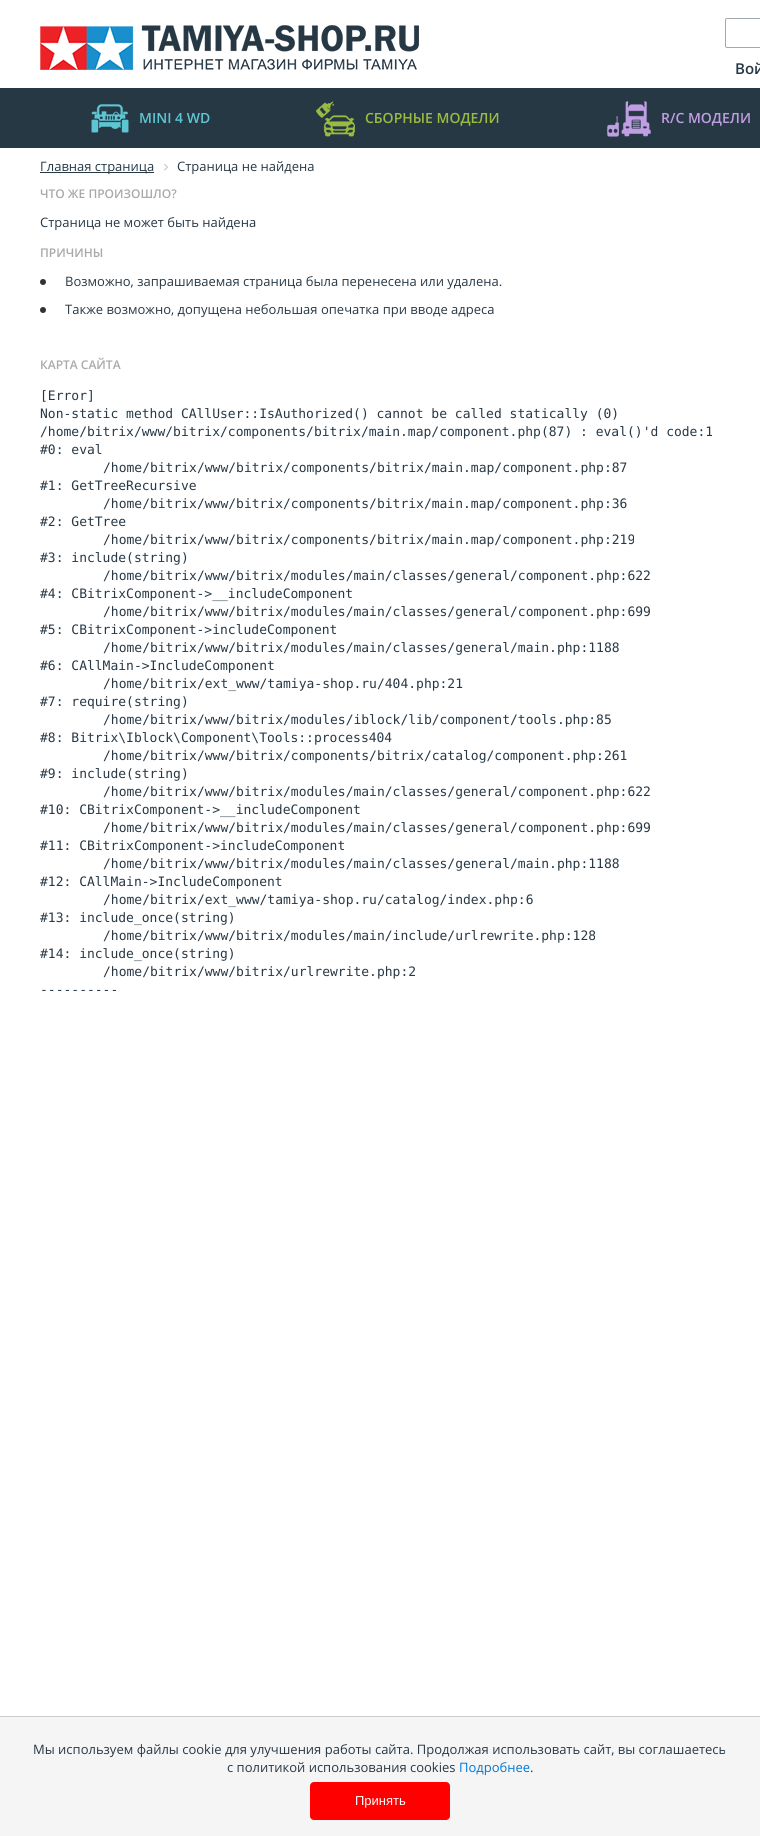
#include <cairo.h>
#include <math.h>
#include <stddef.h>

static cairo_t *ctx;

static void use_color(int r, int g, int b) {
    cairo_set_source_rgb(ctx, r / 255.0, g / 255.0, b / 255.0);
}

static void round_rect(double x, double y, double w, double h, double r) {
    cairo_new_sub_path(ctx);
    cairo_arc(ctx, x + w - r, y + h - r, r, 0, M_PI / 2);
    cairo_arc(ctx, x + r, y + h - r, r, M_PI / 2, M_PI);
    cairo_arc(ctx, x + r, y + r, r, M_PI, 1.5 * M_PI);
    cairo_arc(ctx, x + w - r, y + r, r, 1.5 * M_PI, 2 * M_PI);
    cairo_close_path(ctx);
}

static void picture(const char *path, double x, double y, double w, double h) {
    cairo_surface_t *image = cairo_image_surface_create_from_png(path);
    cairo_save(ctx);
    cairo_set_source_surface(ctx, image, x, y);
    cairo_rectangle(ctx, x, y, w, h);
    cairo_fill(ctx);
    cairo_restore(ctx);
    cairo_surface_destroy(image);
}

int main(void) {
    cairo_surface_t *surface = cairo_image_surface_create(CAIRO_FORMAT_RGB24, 760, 1836);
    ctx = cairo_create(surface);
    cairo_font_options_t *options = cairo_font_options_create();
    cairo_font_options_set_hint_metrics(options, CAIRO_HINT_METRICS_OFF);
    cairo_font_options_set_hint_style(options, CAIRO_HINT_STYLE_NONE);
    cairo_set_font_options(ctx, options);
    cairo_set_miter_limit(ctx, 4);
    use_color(255, 255, 255);
    cairo_paint(ctx);
    picture("img1.png", 40, 25, 379, 45);
    round_rect(725.5, 18.5, 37, 29, 1.5);
    use_color(161, 168, 174);
    cairo_set_line_width(ctx, 1);
    cairo_stroke(ctx);
    cairo_select_font_face(ctx, "Open Sans SemiBold", CAIRO_FONT_SLANT_NORMAL, CAIRO_FONT_WEIGHT_NORMAL);
    cairo_set_font_size(ctx, 15);
    use_color(39, 56, 69);
    cairo_move_to(ctx, 735, 74);
    cairo_show_text(ctx, "Вой");
    cairo_rectangle(ctx, 0, 88, 760, 60);
    cairo_fill(ctx);
    picture("img2.png", 91, 104, 38, 29);
    cairo_set_font_size(ctx, 14);
    use_color(94, 198, 211);
    cairo_move_to(ctx, 139, 123);
    cairo_show_text(ctx, "MINI 4 WD");
    picture("img3.png", 316, 101, 39, 36);
    use_color(155, 187, 64);
    cairo_move_to(ctx, 365, 123);
    cairo_show_text(ctx, "СБОРНЫЕ МОДЕЛИ");
    picture("img4.png", 607, 101, 44, 36);
    use_color(192, 158, 227);
    cairo_move_to(ctx, 661, 123);
    cairo_show_text(ctx, "R/C МОДЕЛИ");
    use_color(39, 56, 69);
    cairo_rectangle(ctx, 40, 172, 114, 1);
    cairo_fill(ctx);
    cairo_select_font_face(ctx, "Open Sans", CAIRO_FONT_SLANT_NORMAL, CAIRO_FONT_WEIGHT_NORMAL);
    cairo_set_font_size(ctx, 13);
    cairo_move_to(ctx, 40, 171);
    cairo_show_text(ctx, "Главная страница");
    picture("img5.png", 164, 163, 4, 8);
    cairo_move_to(ctx, 177, 171);
    cairo_show_text(ctx, "Страница не найдена");
    cairo_select_font_face(ctx, "Open Sans SemiBold", CAIRO_FONT_SLANT_NORMAL, CAIRO_FONT_WEIGHT_NORMAL);
    cairo_set_font_size(ctx, 12);
    use_color(168, 169, 169);
    cairo_move_to(ctx, 40, 198);
    cairo_show_text(ctx, "ЧТО ЖЕ ПРОИЗОШЛО?");
    cairo_select_font_face(ctx, "Open Sans", CAIRO_FONT_SLANT_NORMAL, CAIRO_FONT_WEIGHT_NORMAL);
    cairo_set_font_size(ctx, 13);
    use_color(39, 56, 69);
    cairo_move_to(ctx, 40, 227);
    cairo_show_text(ctx, "Страница не может быть найдена");
    cairo_select_font_face(ctx, "Open Sans SemiBold", CAIRO_FONT_SLANT_NORMAL, CAIRO_FONT_WEIGHT_NORMAL);
    cairo_set_font_size(ctx, 12);
    use_color(168, 169, 169);
    cairo_move_to(ctx, 40, 257);
    cairo_show_text(ctx, "ПРИЧИНЫ");
    use_color(51, 51, 51);
    cairo_new_path(ctx);
    cairo_arc(ctx, 43, 282, 3, 0, 2 * M_PI);
    cairo_fill(ctx);
    cairo_select_font_face(ctx, "Open Sans", CAIRO_FONT_SLANT_NORMAL, CAIRO_FONT_WEIGHT_NORMAL);
    cairo_set_font_size(ctx, 13);
    use_color(39, 56, 69);
    cairo_move_to(ctx, 65, 286);
    cairo_show_text(ctx, "Возможно, запрашиваемая страница была перенесена или удалена.");
    use_color(51, 51, 51);
    cairo_new_path(ctx);
    cairo_arc(ctx, 43, 310, 3, 0, 2 * M_PI);
    cairo_fill(ctx);
    use_color(39, 56, 69);
    cairo_move_to(ctx, 65, 314);
    cairo_show_text(ctx, "Также возможно, допущена небольшая опечатка при вводе адреса");
    cairo_select_font_face(ctx, "Open Sans SemiBold", CAIRO_FONT_SLANT_NORMAL, CAIRO_FONT_WEIGHT_NORMAL);
    cairo_set_font_size(ctx, 12);
    use_color(168, 169, 169);
    cairo_move_to(ctx, 40, 369);
    cairo_show_text(ctx, "КАРТА САЙТА");
    cairo_select_font_face(ctx, "DejaVu Sans Mono", CAIRO_FONT_SLANT_NORMAL, CAIRO_FONT_WEIGHT_NORMAL);
    cairo_set_font_size(ctx, 13);
    use_color(39, 56, 69);
    cairo_move_to(ctx, 40, 400);
    cairo_show_text(ctx, "[Error]");
    cairo_move_to(ctx, 40, 418);
    cairo_show_text(ctx, "Non-static method CAllUser::IsAuthorized() cannot be called statically (0)");
    cairo_move_to(ctx, 40, 436);
    cairo_show_text(ctx, "/home/bitrix/www/bitrix/components/bitrix/main.map/component.php(87) : eval()'d code:1");
    cairo_move_to(ctx, 40, 454);
    cairo_show_text(ctx, "#0: eval");
    cairo_move_to(ctx, 103, 472);
    cairo_show_text(ctx, "/home/bitrix/www/bitrix/components/bitrix/main.map/component.php:87");
    cairo_move_to(ctx, 40, 490);
    cairo_show_text(ctx, "#1: GetTreeRecursive");
    cairo_move_to(ctx, 103, 508);
    cairo_show_text(ctx, "/home/bitrix/www/bitrix/components/bitrix/main.map/component.php:36");
    cairo_move_to(ctx, 40, 526);
    cairo_show_text(ctx, "#2: GetTree");
    cairo_move_to(ctx, 103, 544);
    cairo_show_text(ctx, "/home/bitrix/www/bitrix/components/bitrix/main.map/component.php:219");
    cairo_move_to(ctx, 40, 562);
    cairo_show_text(ctx, "#3: include(string)");
    cairo_move_to(ctx, 103, 580);
    cairo_show_text(ctx, "/home/bitrix/www/bitrix/modules/main/classes/general/component.php:622");
    cairo_move_to(ctx, 40, 598);
    cairo_show_text(ctx, "#4: CBitrixComponent->__includeComponent");
    cairo_move_to(ctx, 103, 616);
    cairo_show_text(ctx, "/home/bitrix/www/bitrix/modules/main/classes/general/component.php:699");
    cairo_move_to(ctx, 40, 634);
    cairo_show_text(ctx, "#5: CBitrixComponent->includeComponent");
    cairo_move_to(ctx, 103, 652);
    cairo_show_text(ctx, "/home/bitrix/www/bitrix/modules/main/classes/general/main.php:1188");
    cairo_move_to(ctx, 40, 670);
    cairo_show_text(ctx, "#6: CAllMain->IncludeComponent");
    cairo_move_to(ctx, 103, 688);
    cairo_show_text(ctx, "/home/bitrix/ext_www/tamiya-shop.ru/404.php:21");
    cairo_move_to(ctx, 40, 706);
    cairo_show_text(ctx, "#7: require(string)");
    cairo_move_to(ctx, 103, 724);
    cairo_show_text(ctx, "/home/bitrix/www/bitrix/modules/iblock/lib/component/tools.php:85");
    cairo_move_to(ctx, 40, 742);
    cairo_show_text(ctx, "#8: Bitrix\\Iblock\\Component\\Tools::process404");
    cairo_move_to(ctx, 103, 760);
    cairo_show_text(ctx, "/home/bitrix/www/bitrix/components/bitrix/catalog/component.php:261");
    cairo_move_to(ctx, 40, 778);
    cairo_show_text(ctx, "#9: include(string)");
    cairo_move_to(ctx, 103, 796);
    cairo_show_text(ctx, "/home/bitrix/www/bitrix/modules/main/classes/general/component.php:622");
    cairo_move_to(ctx, 40, 814);
    cairo_show_text(ctx, "#10: CBitrixComponent->__includeComponent");
    cairo_move_to(ctx, 103, 832);
    cairo_show_text(ctx, "/home/bitrix/www/bitrix/modules/main/classes/general/component.php:699");
    cairo_move_to(ctx, 40, 850);
    cairo_show_text(ctx, "#11: CBitrixComponent->includeComponent");
    cairo_move_to(ctx, 103, 868);
    cairo_show_text(ctx, "/home/bitrix/www/bitrix/modules/main/classes/general/main.php:1188");
    cairo_move_to(ctx, 40, 886);
    cairo_show_text(ctx, "#12: CAllMain->IncludeComponent");
    cairo_move_to(ctx, 103, 904);
    cairo_show_text(ctx, "/home/bitrix/ext_www/tamiya-shop.ru/catalog/index.php:6");
    cairo_move_to(ctx, 40, 922);
    cairo_show_text(ctx, "#13: include_once(string)");
    cairo_move_to(ctx, 103, 940);
    cairo_show_text(ctx, "/home/bitrix/www/bitrix/modules/main/include/urlrewrite.php:128");
    cairo_move_to(ctx, 40, 958);
    cairo_show_text(ctx, "#14: include_once(string)");
    cairo_move_to(ctx, 103, 976);
    cairo_show_text(ctx, "/home/bitrix/www/bitrix/urlrewrite.php:2");
    cairo_move_to(ctx, 40, 994);
    cairo_show_text(ctx, "----------");
    use_color(245, 245, 245);
    cairo_rectangle(ctx, 0, 1717, 760, 119);
    cairo_fill(ctx);
    use_color(204, 204, 204);
    cairo_rectangle(ctx, 0, 1716, 760, 1);
    cairo_fill(ctx);
    cairo_select_font_face(ctx, "Open Sans", CAIRO_FONT_SLANT_NORMAL, CAIRO_FONT_WEIGHT_NORMAL);
    use_color(39, 56, 69);
    cairo_move_to(ctx, 33, 1754);
    cairo_show_text(ctx, "Мы используем файлы cookie для улучшения работы сайта. Продолжая использовать сайт, вы соглашаетесь");
    cairo_move_to(ctx, 227, 1772);
    cairo_show_text(ctx, "с политикой использования cookies");
    use_color(0, 120, 215);
    cairo_move_to(ctx, 459, 1772);
    cairo_show_text(ctx, "Подробнее");
    use_color(39, 56, 69);
    cairo_move_to(ctx, 530, 1772);
    cairo_show_text(ctx, ".");
    use_color(255, 0, 0);
    round_rect(310, 1782, 140, 38, 4);
    cairo_fill(ctx);
    cairo_select_font_face(ctx, "Liberation Sans", CAIRO_FONT_SLANT_NORMAL, CAIRO_FONT_WEIGHT_NORMAL);
    use_color(255, 255, 255);
    cairo_move_to(ctx, 355, 1805);
    cairo_show_text(ctx, "Принять");
    cairo_surface_write_to_png(surface, "result.png");
    cairo_font_options_destroy(options);
    cairo_destroy(ctx);
    cairo_surface_destroy(surface);
    return 0;
}
